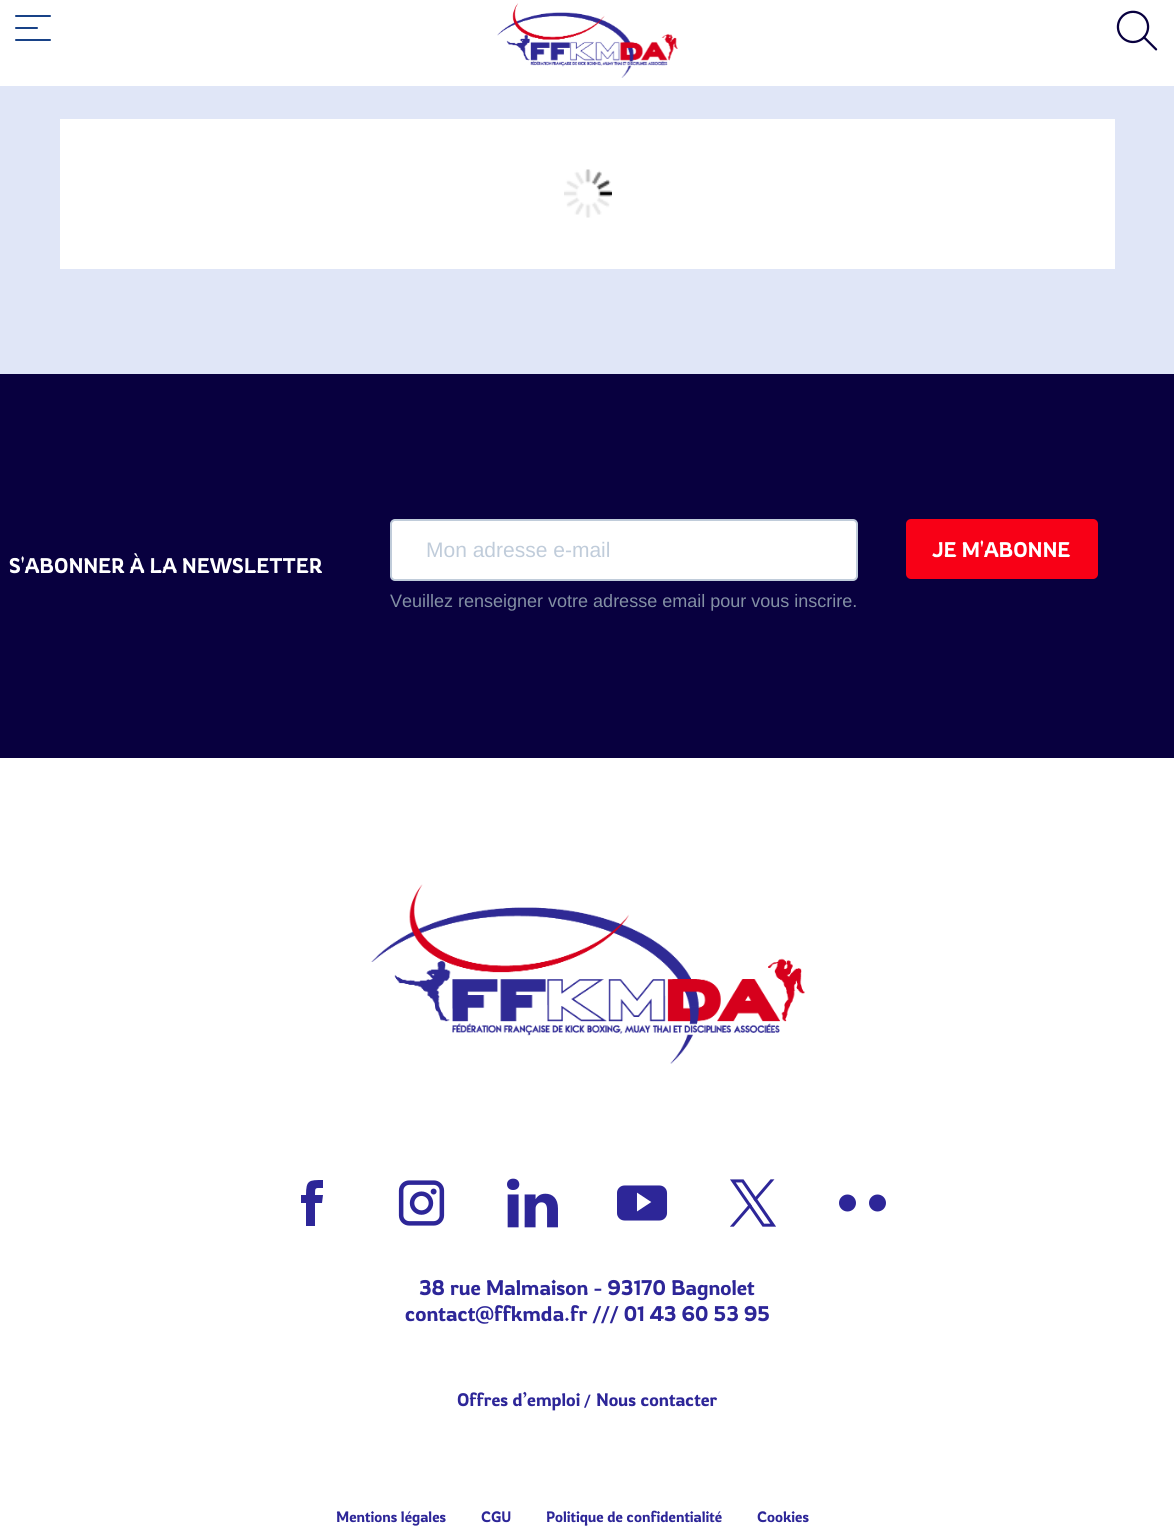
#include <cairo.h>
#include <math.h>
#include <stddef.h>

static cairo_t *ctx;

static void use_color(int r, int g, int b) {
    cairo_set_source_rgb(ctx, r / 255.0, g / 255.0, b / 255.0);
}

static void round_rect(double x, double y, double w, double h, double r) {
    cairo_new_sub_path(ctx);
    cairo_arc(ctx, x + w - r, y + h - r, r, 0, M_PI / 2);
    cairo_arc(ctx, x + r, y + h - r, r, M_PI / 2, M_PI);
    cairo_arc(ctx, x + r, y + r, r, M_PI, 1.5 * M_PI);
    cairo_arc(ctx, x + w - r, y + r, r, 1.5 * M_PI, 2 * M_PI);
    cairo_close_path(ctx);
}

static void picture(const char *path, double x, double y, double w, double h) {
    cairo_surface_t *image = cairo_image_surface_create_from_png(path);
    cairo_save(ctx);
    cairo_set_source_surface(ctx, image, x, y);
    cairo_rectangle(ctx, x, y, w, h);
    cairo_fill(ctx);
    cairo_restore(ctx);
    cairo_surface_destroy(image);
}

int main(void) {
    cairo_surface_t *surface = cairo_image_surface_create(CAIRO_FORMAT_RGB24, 1174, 1539);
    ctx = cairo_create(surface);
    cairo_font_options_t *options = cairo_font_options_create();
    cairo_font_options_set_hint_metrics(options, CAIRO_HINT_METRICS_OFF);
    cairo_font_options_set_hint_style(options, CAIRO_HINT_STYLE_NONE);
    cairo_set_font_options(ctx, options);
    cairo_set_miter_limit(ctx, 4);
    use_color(255, 255, 255);
    cairo_paint(ctx);
    use_color(24, 66, 135);
    round_rect(15, 15, 36, 2, 1);
    cairo_fill(ctx);
    round_rect(15, 27, 23, 2, 1);
    cairo_fill(ctx);
    round_rect(15, 39, 36, 2, 1);
    cairo_fill(ctx);
    picture("img1.png", 497, 3, 181, 75);
    picture("img2.png", 1116, 10, 42, 41);
    use_color(224, 230, 247);
    cairo_rectangle(ctx, 0, 86, 1174, 288);
    cairo_fill(ctx);
    use_color(255, 255, 255);
    cairo_rectangle(ctx, 60, 119, 1055, 150);
    cairo_fill(ctx);
    picture("img3.png", 564, 169, 48, 49);
    use_color(8, 0, 63);
    cairo_rectangle(ctx, 0, 374, 1174, 384);
    cairo_fill(ctx);
    cairo_select_font_face(ctx, "Rowdies Light", CAIRO_FONT_SLANT_NORMAL, CAIRO_FONT_WEIGHT_NORMAL);
    cairo_set_font_size(ctx, 21);
    use_color(255, 255, 255);
    cairo_move_to(ctx, 9, 573);
    cairo_show_text(ctx, "S'ABONNER À LA NEWSLETTER");
    round_rect(391, 520, 466, 60, 4);
    cairo_fill_preserve(ctx);
    use_color(192, 204, 218);
    cairo_stroke(ctx);
    cairo_select_font_face(ctx, "Liberation Sans", CAIRO_FONT_SLANT_NORMAL, CAIRO_FONT_WEIGHT_NORMAL);
    cairo_move_to(ctx, 426, 557);
    cairo_show_text(ctx, "Mon adresse e-mail");
    cairo_set_font_size(ctx, 18);
    use_color(131, 144, 164);
    cairo_move_to(ctx, 390, 607);
    cairo_show_text(ctx, "Veuillez renseigner votre adresse email pour vous inscrire.");
    use_color(248, 0, 22);
    round_rect(906, 519, 192, 60, 5);
    cairo_fill(ctx);
    cairo_select_font_face(ctx, "Rowdies Light", CAIRO_FONT_SLANT_NORMAL, CAIRO_FONT_WEIGHT_NORMAL);
    cairo_set_font_size(ctx, 21);
    use_color(255, 255, 255);
    cairo_move_to(ctx, 932, 557);
    cairo_show_text(ctx, "JE M'ABONNE");
    picture("img4.png", 371, 884, 434, 180);
    use_color(45, 38, 152);
    cairo_new_path(ctx);
    cairo_move_to(ctx, 322, 1203);
    cairo_line_to(ctx, 315, 1203);
    cairo_line_to(ctx, 315, 1226);
    cairo_line_to(ctx, 306, 1226);
    cairo_line_to(ctx, 306, 1203);
    cairo_line_to(ctx, 301, 1203);
    cairo_line_to(ctx, 301, 1195);
    cairo_line_to(ctx, 306, 1195);
    cairo_curve_to(ctx, 306, 1180, 309, 1180, 323, 1180);
    cairo_line_to(ctx, 323, 1188);
    cairo_curve_to(ctx, 315, 1188, 315, 1187, 315, 1195);
    cairo_line_to(ctx, 323, 1195);
    cairo_close_path(ctx);
    cairo_fill(ctx);
    picture("img5.png", 398, 1180, 47, 46);
    picture("img6.png", 507, 1178, 51, 50);
    picture("img7.png", 617, 1185, 51, 36);
    picture("img8.png", 730, 1179, 46, 48);
    cairo_arc(ctx, 847.5, 1203, 8.5, 0, 2 * M_PI);
    cairo_fill(ctx);
    cairo_arc(ctx, 877.5, 1203, 8.5, 0, 2 * M_PI);
    cairo_fill(ctx);
    cairo_move_to(ctx, 419, 1295);
    cairo_show_text(ctx, "38 rue Malmaison - 93170 Bagnolet");
    cairo_move_to(ctx, 405, 1321);
    cairo_show_text(ctx, "contact@ffkmda.fr /// 01 43 60 53 95");
    cairo_set_font_size(ctx, 18);
    cairo_move_to(ctx, 457, 1406);
    cairo_show_text(ctx, "Offres d’emploi");
    cairo_set_font_size(ctx, 16);
    cairo_move_to(ctx, 584, 1406);
    cairo_show_text(ctx, "/");
    cairo_set_font_size(ctx, 18);
    cairo_move_to(ctx, 596, 1406);
    cairo_show_text(ctx, "Nous contacter");
    cairo_set_font_size(ctx, 15);
    cairo_move_to(ctx, 336, 1522);
    cairo_show_text(ctx, "Mentions légales");
    cairo_move_to(ctx, 481, 1522);
    cairo_show_text(ctx, "CGU");
    cairo_move_to(ctx, 546, 1522);
    cairo_show_text(ctx, "Politique de confidentialité");
    cairo_move_to(ctx, 757, 1522);
    cairo_show_text(ctx, "Cookies");
    cairo_surface_write_to_png(surface, "result.png");
    cairo_font_options_destroy(options);
    cairo_destroy(ctx);
    cairo_surface_destroy(surface);
    return 0;
}
